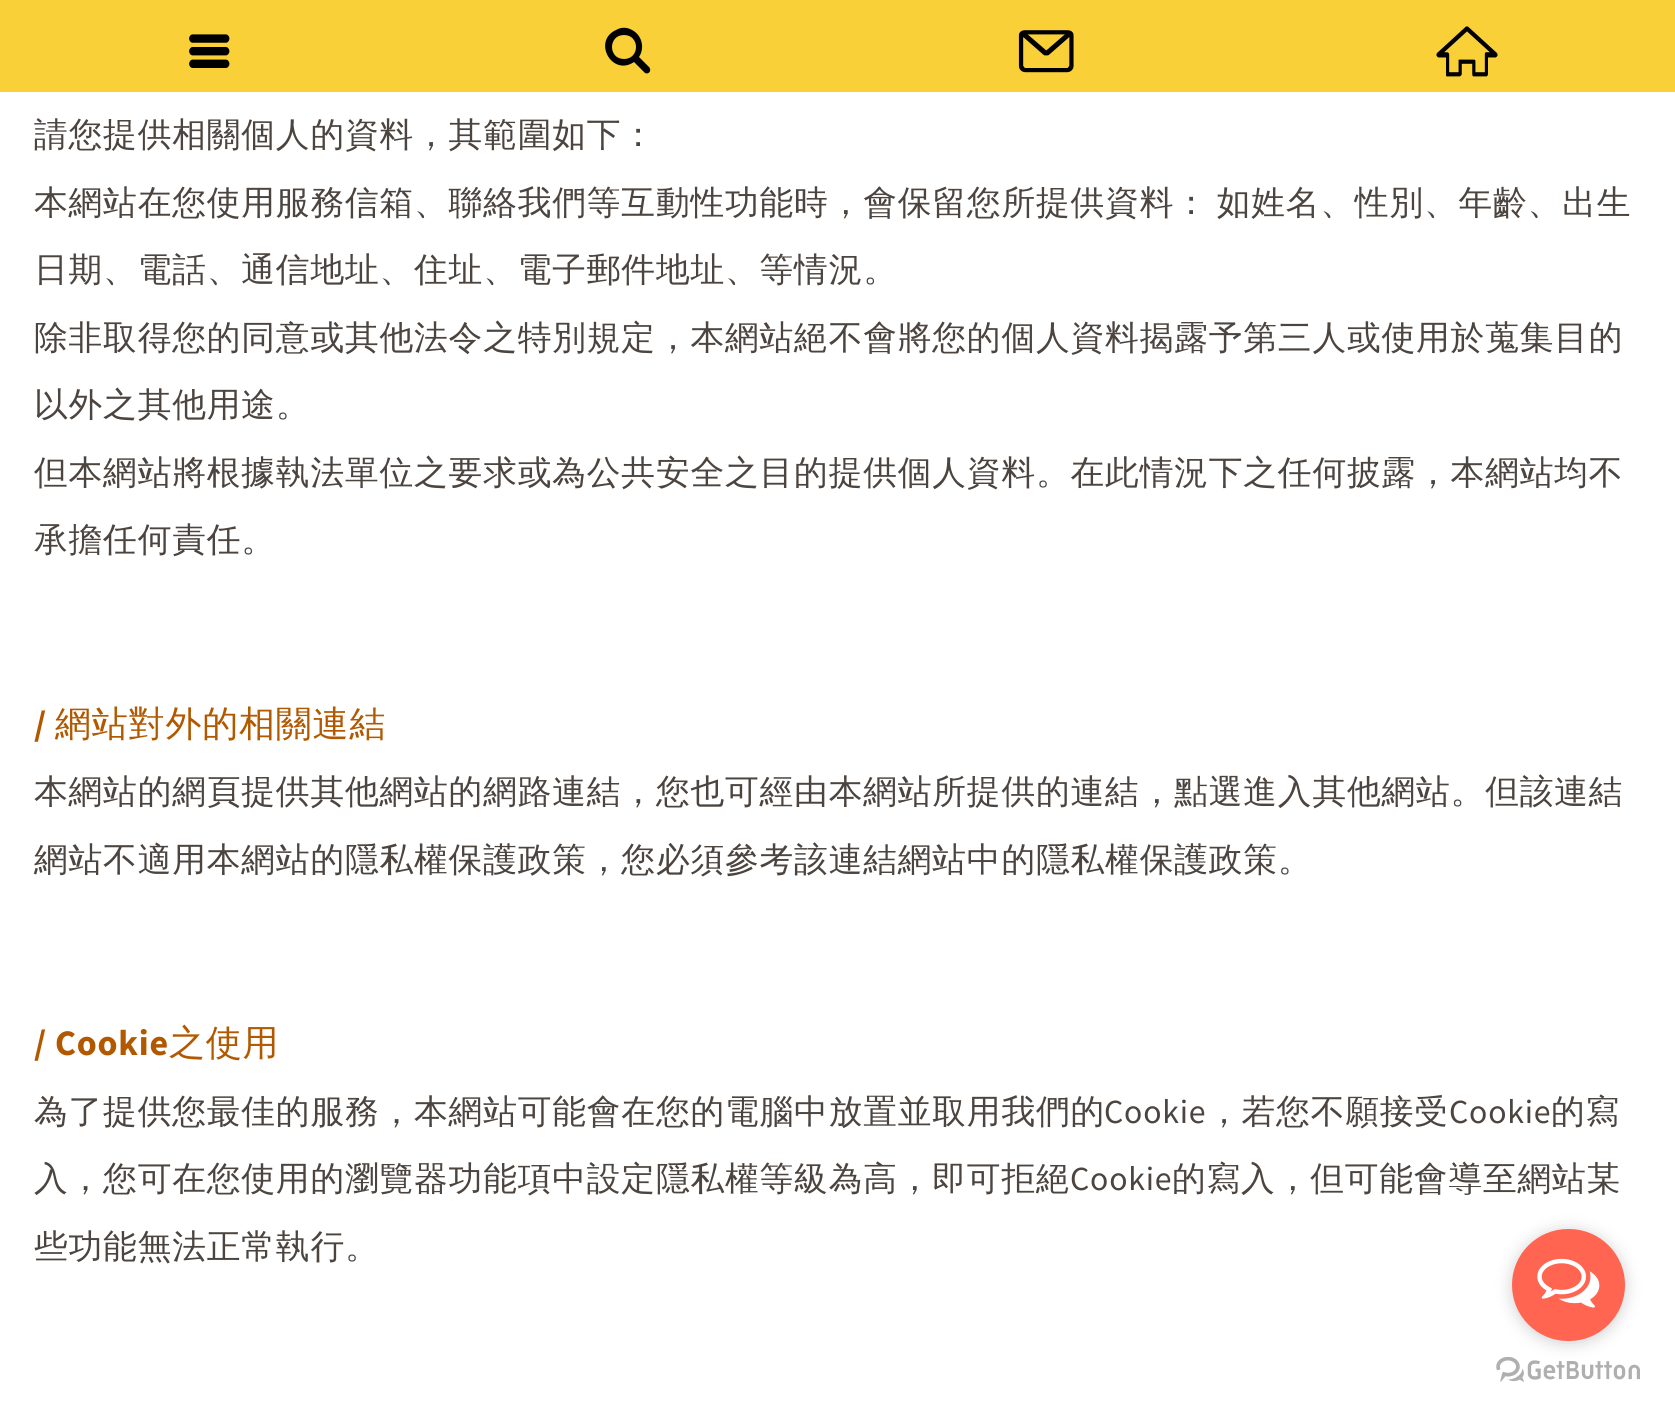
#include <cairo.h>
#include <math.h>
#include <stddef.h>

static cairo_t *ctx;

static void use_color(int r, int g, int b) {
    cairo_set_source_rgb(ctx, r / 255.0, g / 255.0, b / 255.0);
}

static void spaced_text(double x, double y, const char *s, double letter, double word) {
    cairo_move_to(ctx, x, y);
    while (*s) {
        char ch[5] = {0};
        int n = 0;
        do ch[n++] = *s++; while ((*s & 0xC0) == 0x80);
        cairo_show_text(ctx, ch);
        cairo_rel_move_to(ctx, letter + word * (*ch == ' '), 0);
    }
}

static void round_rect(double x, double y, double w, double h, double r) {
    cairo_new_sub_path(ctx);
    cairo_arc(ctx, x + w - r, y + h - r, r, 0, M_PI / 2);
    cairo_arc(ctx, x + r, y + h - r, r, M_PI / 2, M_PI);
    cairo_arc(ctx, x + r, y + r, r, M_PI, 1.5 * M_PI);
    cairo_arc(ctx, x + w - r, y + r, r, 1.5 * M_PI, 2 * M_PI);
    cairo_close_path(ctx);
}

static void shadow(double x, double y, double w, double h, double r, double blur, double alpha) {
    cairo_push_group_with_content(ctx, CAIRO_CONTENT_ALPHA);
    cairo_set_operator(ctx, CAIRO_OPERATOR_SOURCE);
    for (int i = 15; i >= -15 && fmin(w, h) + blur * i / 3 > 0; i -= 2) {
        double e = blur * i / 6;
        cairo_set_source_rgba(ctx, 0, 0, 0, alpha * erfc((i - 1) / 8.5) / 2);
        round_rect(x - e, y - e, w + 2 * e, h + 2 * e, fmax(0, fmin(r + e + blur * .6, fmin(w, h) / 2 + e)));
        cairo_fill(ctx);
    }
    cairo_pattern_t *soft = cairo_pop_group(ctx);
    cairo_mask(ctx, soft);
    cairo_pattern_destroy(soft);
}

static void picture(const char *path, double x, double y, double w, double h) {
    cairo_surface_t *image = cairo_image_surface_create_from_png(path);
    cairo_save(ctx);
    cairo_set_source_surface(ctx, image, x, y);
    cairo_rectangle(ctx, x, y, w, h);
    cairo_fill(ctx);
    cairo_restore(ctx);
    cairo_surface_destroy(image);
}

int main(void) {
    cairo_surface_t *surface = cairo_image_surface_create(CAIRO_FORMAT_RGB24, 1675, 1417);
    ctx = cairo_create(surface);
    cairo_font_options_t *options = cairo_font_options_create();
    cairo_font_options_set_hint_metrics(options, CAIRO_HINT_METRICS_OFF);
    cairo_font_options_set_hint_style(options, CAIRO_HINT_STYLE_NONE);
    cairo_set_font_options(ctx, options);
    cairo_set_miter_limit(ctx, 4);
    use_color(255, 255, 255);
    cairo_paint(ctx);
    use_color(250, 208, 56);
    cairo_rectangle(ctx, 0, 90, 1675, 2);
    cairo_fill(ctx);
    cairo_rectangle(ctx, 0, 0, 1675, 90);
    cairo_fill(ctx);
    picture("img1.png", 189, 34, 41, 34);
    use_color(0, 0, 0);
    cairo_new_path(ctx);
    cairo_move_to(ctx, 649, 67);
    cairo_line_to(ctx, 639, 57);
    cairo_curve_to(ctx, 645, 48, 642, 35, 632, 30);
    cairo_curve_to(ctx, 627, 27, 621, 27, 616, 30);
    cairo_curve_to(ctx, 592, 41, 612, 77, 634, 62);
    cairo_line_to(ctx, 645, 73);
    cairo_curve_to(ctx, 649, 75, 652, 70, 649, 67);
    cairo_close_path(ctx);
    cairo_move_to(ctx, 624, 59);
    cairo_curve_to(ctx, 608, 59, 608, 35, 624, 35);
    cairo_curve_to(ctx, 640, 35, 640, 59, 624, 59);
    cairo_close_path(ctx);
    cairo_fill(ctx);
    picture("img2.png", 1018, 30, 56, 43);
    picture("img3.png", 1436, 26, 62, 51);
    cairo_select_font_face(ctx, "WenQuanYi Zen Hei Medium", CAIRO_FONT_SLANT_NORMAL, CAIRO_FONT_WEIGHT_NORMAL);
    cairo_set_font_size(ctx, 33.75);
    use_color(75, 68, 63);
    spaced_text(34, 146, "請您提供相關個人的資料，其範圍如下：", 0.8, 0);
    spaced_text(34, 214, "本網站在您使用服務信箱、聯絡我們等互動性功能時，會保留您所提供資料： 如姓名、性別、年齡、出生", 0.8, -3);
    spaced_text(34, 281, "日期、電話、通信地址、住址、電子郵件地址、等情況。", 0.8, 0);
    spaced_text(34, 349, "除非取得您的同意或其他法令之特別規定，本網站絕不會將您的個人資料揭露予第三人或使用於蒐集目的", 0.8, 0);
    spaced_text(34, 416, "以外之其他用途。", 0.8, 0);
    spaced_text(34, 484, "但本網站將根據執法單位之要求或為公共安全之目的提供個人資料。在此情況下之任何披露，本網站均不", 0.8, 0);
    spaced_text(34, 551, "承擔任何責任。", 0.8, 0);
    cairo_select_font_face(ctx, "Source Sans Pro", CAIRO_FONT_SLANT_NORMAL, CAIRO_FONT_WEIGHT_BOLD);
    cairo_set_font_size(ctx, 36);
    use_color(178, 89, 0);
    spaced_text(34, 736, "/", 0.8, 0);
    cairo_select_font_face(ctx, "WenQuanYi Zen Hei Medium", CAIRO_FONT_SLANT_NORMAL, CAIRO_FONT_WEIGHT_NORMAL);
    spaced_text(55, 736, "網站對外的相關連結", 0.8, 0);
    cairo_set_font_size(ctx, 33.75);
    use_color(75, 68, 63);
    spaced_text(34, 803, "本網站的網頁提供其他網站的網路連結，您也可經由本網站所提供的連結，點選進入其他網站。但該連結", 0.8, 0);
    spaced_text(34, 871, "網站不適用本網站的隱私權保護政策，您必須參考該連結網站中的隱私權保護政策。", 0.8, 0);
    cairo_select_font_face(ctx, "Source Sans Pro", CAIRO_FONT_SLANT_NORMAL, CAIRO_FONT_WEIGHT_BOLD);
    cairo_set_font_size(ctx, 36);
    use_color(178, 89, 0);
    spaced_text(34, 1055, "/ Cookie", 0.8, 0);
    cairo_select_font_face(ctx, "WenQuanYi Zen Hei Medium", CAIRO_FONT_SLANT_NORMAL, CAIRO_FONT_WEIGHT_NORMAL);
    spaced_text(169, 1055, "之使用", 0.8, 0);
    cairo_set_font_size(ctx, 33.75);
    use_color(75, 68, 63);
    spaced_text(34, 1123, "為了提供您最佳的服務，本網站可能會在您的電腦中放置並取用我們的", 0.8, 0);
    cairo_select_font_face(ctx, "Source Sans Pro", CAIRO_FONT_SLANT_NORMAL, CAIRO_FONT_WEIGHT_NORMAL);
    spaced_text(1104, 1123, "Cookie", 0.8, 0);
    cairo_select_font_face(ctx, "WenQuanYi Zen Hei Medium", CAIRO_FONT_SLANT_NORMAL, CAIRO_FONT_WEIGHT_NORMAL);
    spaced_text(1207, 1123, "，若您不願接受", 0.8, 0);
    cairo_select_font_face(ctx, "Source Sans Pro", CAIRO_FONT_SLANT_NORMAL, CAIRO_FONT_WEIGHT_NORMAL);
    spaced_text(1449, 1123, "Cookie", 0.8, 0);
    cairo_select_font_face(ctx, "WenQuanYi Zen Hei Medium", CAIRO_FONT_SLANT_NORMAL, CAIRO_FONT_WEIGHT_NORMAL);
    spaced_text(1551, 1123, "的寫", 0.8, 0);
    spaced_text(34, 1190, "入，您可在您使用的瀏覽器功能項中設定隱私權等級為高，即可拒絕", 0.8, 0);
    cairo_select_font_face(ctx, "Source Sans Pro", CAIRO_FONT_SLANT_NORMAL, CAIRO_FONT_WEIGHT_NORMAL);
    spaced_text(1070, 1190, "Cookie", 0.8, 0);
    cairo_select_font_face(ctx, "WenQuanYi Zen Hei Medium", CAIRO_FONT_SLANT_NORMAL, CAIRO_FONT_WEIGHT_NORMAL);
    spaced_text(1172, 1190, "的寫入，但可能會導至網站某", 0.8, 0);
    spaced_text(34, 1258, "些功能無法正常執行。", 0.8, 0);
    picture("img5.png", 1496, 1357, 144, 25);
    use_color(136, 136, 136);
    shadow(1512, 1231, 113, 112, 56, 8, 0.4);
    use_color(255, 101, 80);
    round_rect(1512, 1229, 113, 112, 56);
    cairo_fill(ctx);
    picture("img4.png", 1537, 1258, 63, 50);
    cairo_surface_write_to_png(surface, "result.png");
    cairo_font_options_destroy(options);
    cairo_destroy(ctx);
    cairo_surface_destroy(surface);
    return 0;
}
